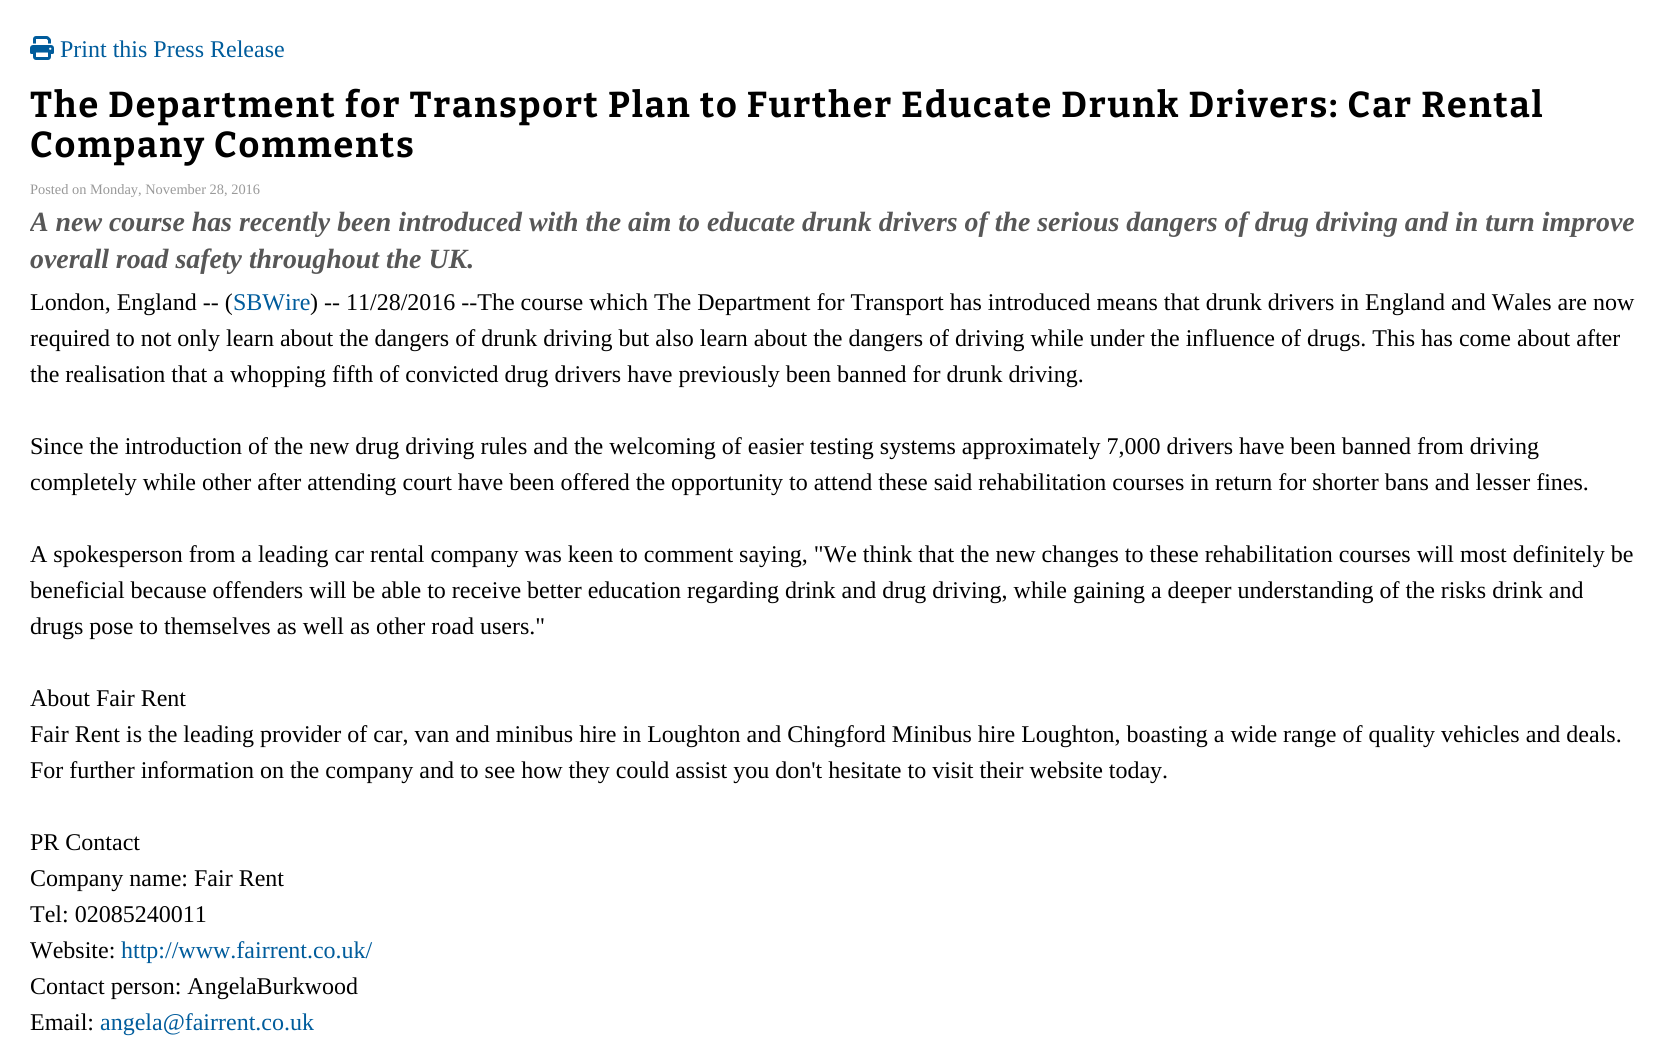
#include <cairo.h>
#include <math.h>
#include <stddef.h>

static cairo_t *ctx;

static void use_color(int r, int g, int b) {
    cairo_set_source_rgb(ctx, r / 255.0, g / 255.0, b / 255.0);
}

static void spaced_text(double x, double y, const char *s, double letter, double word) {
    cairo_move_to(ctx, x, y);
    while (*s) {
        char ch[5] = {0};
        int n = 0;
        do ch[n++] = *s++; while ((*s & 0xC0) == 0x80);
        cairo_show_text(ctx, ch);
        cairo_rel_move_to(ctx, letter + word * (*ch == ' '), 0);
    }
}

static void picture(const char *path, double x, double y, double w, double h) {
    cairo_surface_t *image = cairo_image_surface_create_from_png(path);
    cairo_save(ctx);
    cairo_set_source_surface(ctx, image, x, y);
    cairo_rectangle(ctx, x, y, w, h);
    cairo_fill(ctx);
    cairo_restore(ctx);
    cairo_surface_destroy(image);
}

int main(void) {
    cairo_surface_t *surface = cairo_image_surface_create(CAIRO_FORMAT_RGB24, 1665, 1040);
    ctx = cairo_create(surface);
    cairo_font_options_t *options = cairo_font_options_create();
    cairo_font_options_set_hint_metrics(options, CAIRO_HINT_METRICS_OFF);
    cairo_font_options_set_hint_style(options, CAIRO_HINT_STYLE_NONE);
    cairo_set_font_options(ctx, options);
    cairo_set_miter_limit(ctx, 4);
    use_color(255, 255, 255);
    cairo_paint(ctx);
    picture("img1.png", 30, 36, 24, 24);
    cairo_select_font_face(ctx, "Liberation Serif", CAIRO_FONT_SLANT_NORMAL, CAIRO_FONT_WEIGHT_NORMAL);
    cairo_set_font_size(ctx, 24);
    use_color(0, 92, 156);
    cairo_move_to(ctx, 60, 57);
    cairo_show_text(ctx, "Print this Press Release");
    cairo_select_font_face(ctx, "Bitter", CAIRO_FONT_SLANT_NORMAL, CAIRO_FONT_WEIGHT_BOLD);
    cairo_set_font_size(ctx, 36);
    use_color(0, 0, 0);
    spaced_text(30, 117, "The Department for Transport Plan to Further Educate Drunk Drivers: Car Rental", 1.8, 0);
    spaced_text(30, 157, "Company Comments", 1.8, 0);
    cairo_select_font_face(ctx, "Liberation Serif", CAIRO_FONT_SLANT_NORMAL, CAIRO_FONT_WEIGHT_NORMAL);
    cairo_set_font_size(ctx, 14.4);
    use_color(153, 153, 153);
    cairo_move_to(ctx, 30, 194);
    cairo_show_text(ctx, "Posted on Monday, November 28, 2016");
    cairo_save(ctx);
    cairo_rectangle(ctx, 30, 86, 1605, 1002);
    cairo_clip(ctx);
    cairo_select_font_face(ctx, "Liberation Serif", CAIRO_FONT_SLANT_ITALIC, CAIRO_FONT_WEIGHT_BOLD);
    cairo_set_font_size(ctx, 27.85);
    use_color(87, 87, 87);
    cairo_move_to(ctx, 30, 231);
    cairo_show_text(ctx, "A new course has recently been introduced with the aim to educate drunk drivers of the serious dangers of drug driving and in turn improve");
    cairo_restore(ctx);
    cairo_select_font_face(ctx, "Liberation Serif", CAIRO_FONT_SLANT_ITALIC, CAIRO_FONT_WEIGHT_BOLD);
    cairo_set_font_size(ctx, 27.85);
    use_color(87, 87, 87);
    cairo_move_to(ctx, 30, 268);
    cairo_show_text(ctx, "overall road safety throughout the UK.");
    cairo_select_font_face(ctx, "Liberation Serif", CAIRO_FONT_SLANT_NORMAL, CAIRO_FONT_WEIGHT_NORMAL);
    cairo_set_font_size(ctx, 24);
    use_color(0, 0, 0);
    cairo_move_to(ctx, 30, 310);
    cairo_show_text(ctx, "London, England -- (");
    use_color(0, 92, 156);
    cairo_move_to(ctx, 233, 310);
    cairo_show_text(ctx, "SBWire");
    use_color(0, 0, 0);
    cairo_move_to(ctx, 310, 310);
    cairo_show_text(ctx, ") -- 11/28/2016 --The course which The Department for Transport has introduced means that drunk drivers in England and Wales are now");
    cairo_move_to(ctx, 30, 346);
    cairo_show_text(ctx, "required to not only learn about the dangers of drunk driving but also learn about the dangers of driving while under the influence of drugs. This has come about after");
    cairo_move_to(ctx, 30, 382);
    cairo_show_text(ctx, "the realisation that a whopping fifth of convicted drug drivers have previously been banned for drunk driving.");
    cairo_move_to(ctx, 30, 454);
    cairo_show_text(ctx, "Since the introduction of the new drug driving rules and the welcoming of easier testing systems approximately 7,000 drivers have been banned from driving");
    cairo_move_to(ctx, 30, 490);
    cairo_show_text(ctx, "completely while other after attending court have been offered the opportunity to attend these said rehabilitation courses in return for shorter bans and lesser fines.");
    cairo_move_to(ctx, 30, 562);
    cairo_show_text(ctx, "A spokesperson from a leading car rental company was keen to comment saying, \"We think that the new changes to these rehabilitation courses will most definitely be");
    cairo_move_to(ctx, 30, 598);
    cairo_show_text(ctx, "beneficial because offenders will be able to receive better education regarding drink and drug driving, while gaining a deeper understanding of the risks drink and");
    cairo_move_to(ctx, 30, 634);
    cairo_show_text(ctx, "drugs pose to themselves as well as other road users.\"");
    cairo_move_to(ctx, 30, 706);
    cairo_show_text(ctx, "About Fair Rent");
    cairo_move_to(ctx, 30, 742);
    cairo_show_text(ctx, "Fair Rent is the leading provider of car, van and minibus hire in Loughton and Chingford Minibus hire Loughton, boasting a wide range of quality vehicles and deals.");
    cairo_move_to(ctx, 30, 778);
    cairo_show_text(ctx, "For further information on the company and to see how they could assist you don't hesitate to visit their website today.");
    cairo_move_to(ctx, 30, 850);
    cairo_show_text(ctx, "PR Contact");
    cairo_move_to(ctx, 30, 886);
    cairo_show_text(ctx, "Company name: Fair Rent");
    cairo_move_to(ctx, 30, 922);
    cairo_show_text(ctx, "Tel: 02085240011");
    cairo_move_to(ctx, 30, 958);
    cairo_show_text(ctx, "Website:");
    use_color(0, 92, 156);
    cairo_move_to(ctx, 121, 958);
    cairo_show_text(ctx, "http://www.fairrent.co.uk/");
    use_color(0, 0, 0);
    cairo_move_to(ctx, 30, 994);
    cairo_show_text(ctx, "Contact person: AngelaBurkwood");
    cairo_move_to(ctx, 30, 1030);
    cairo_show_text(ctx, "Email:");
    use_color(0, 92, 156);
    cairo_move_to(ctx, 100, 1030);
    cairo_show_text(ctx, "angela@fairrent.co.uk");
    cairo_surface_write_to_png(surface, "result.png");
    cairo_font_options_destroy(options);
    cairo_destroy(ctx);
    cairo_surface_destroy(surface);
    return 0;
}
